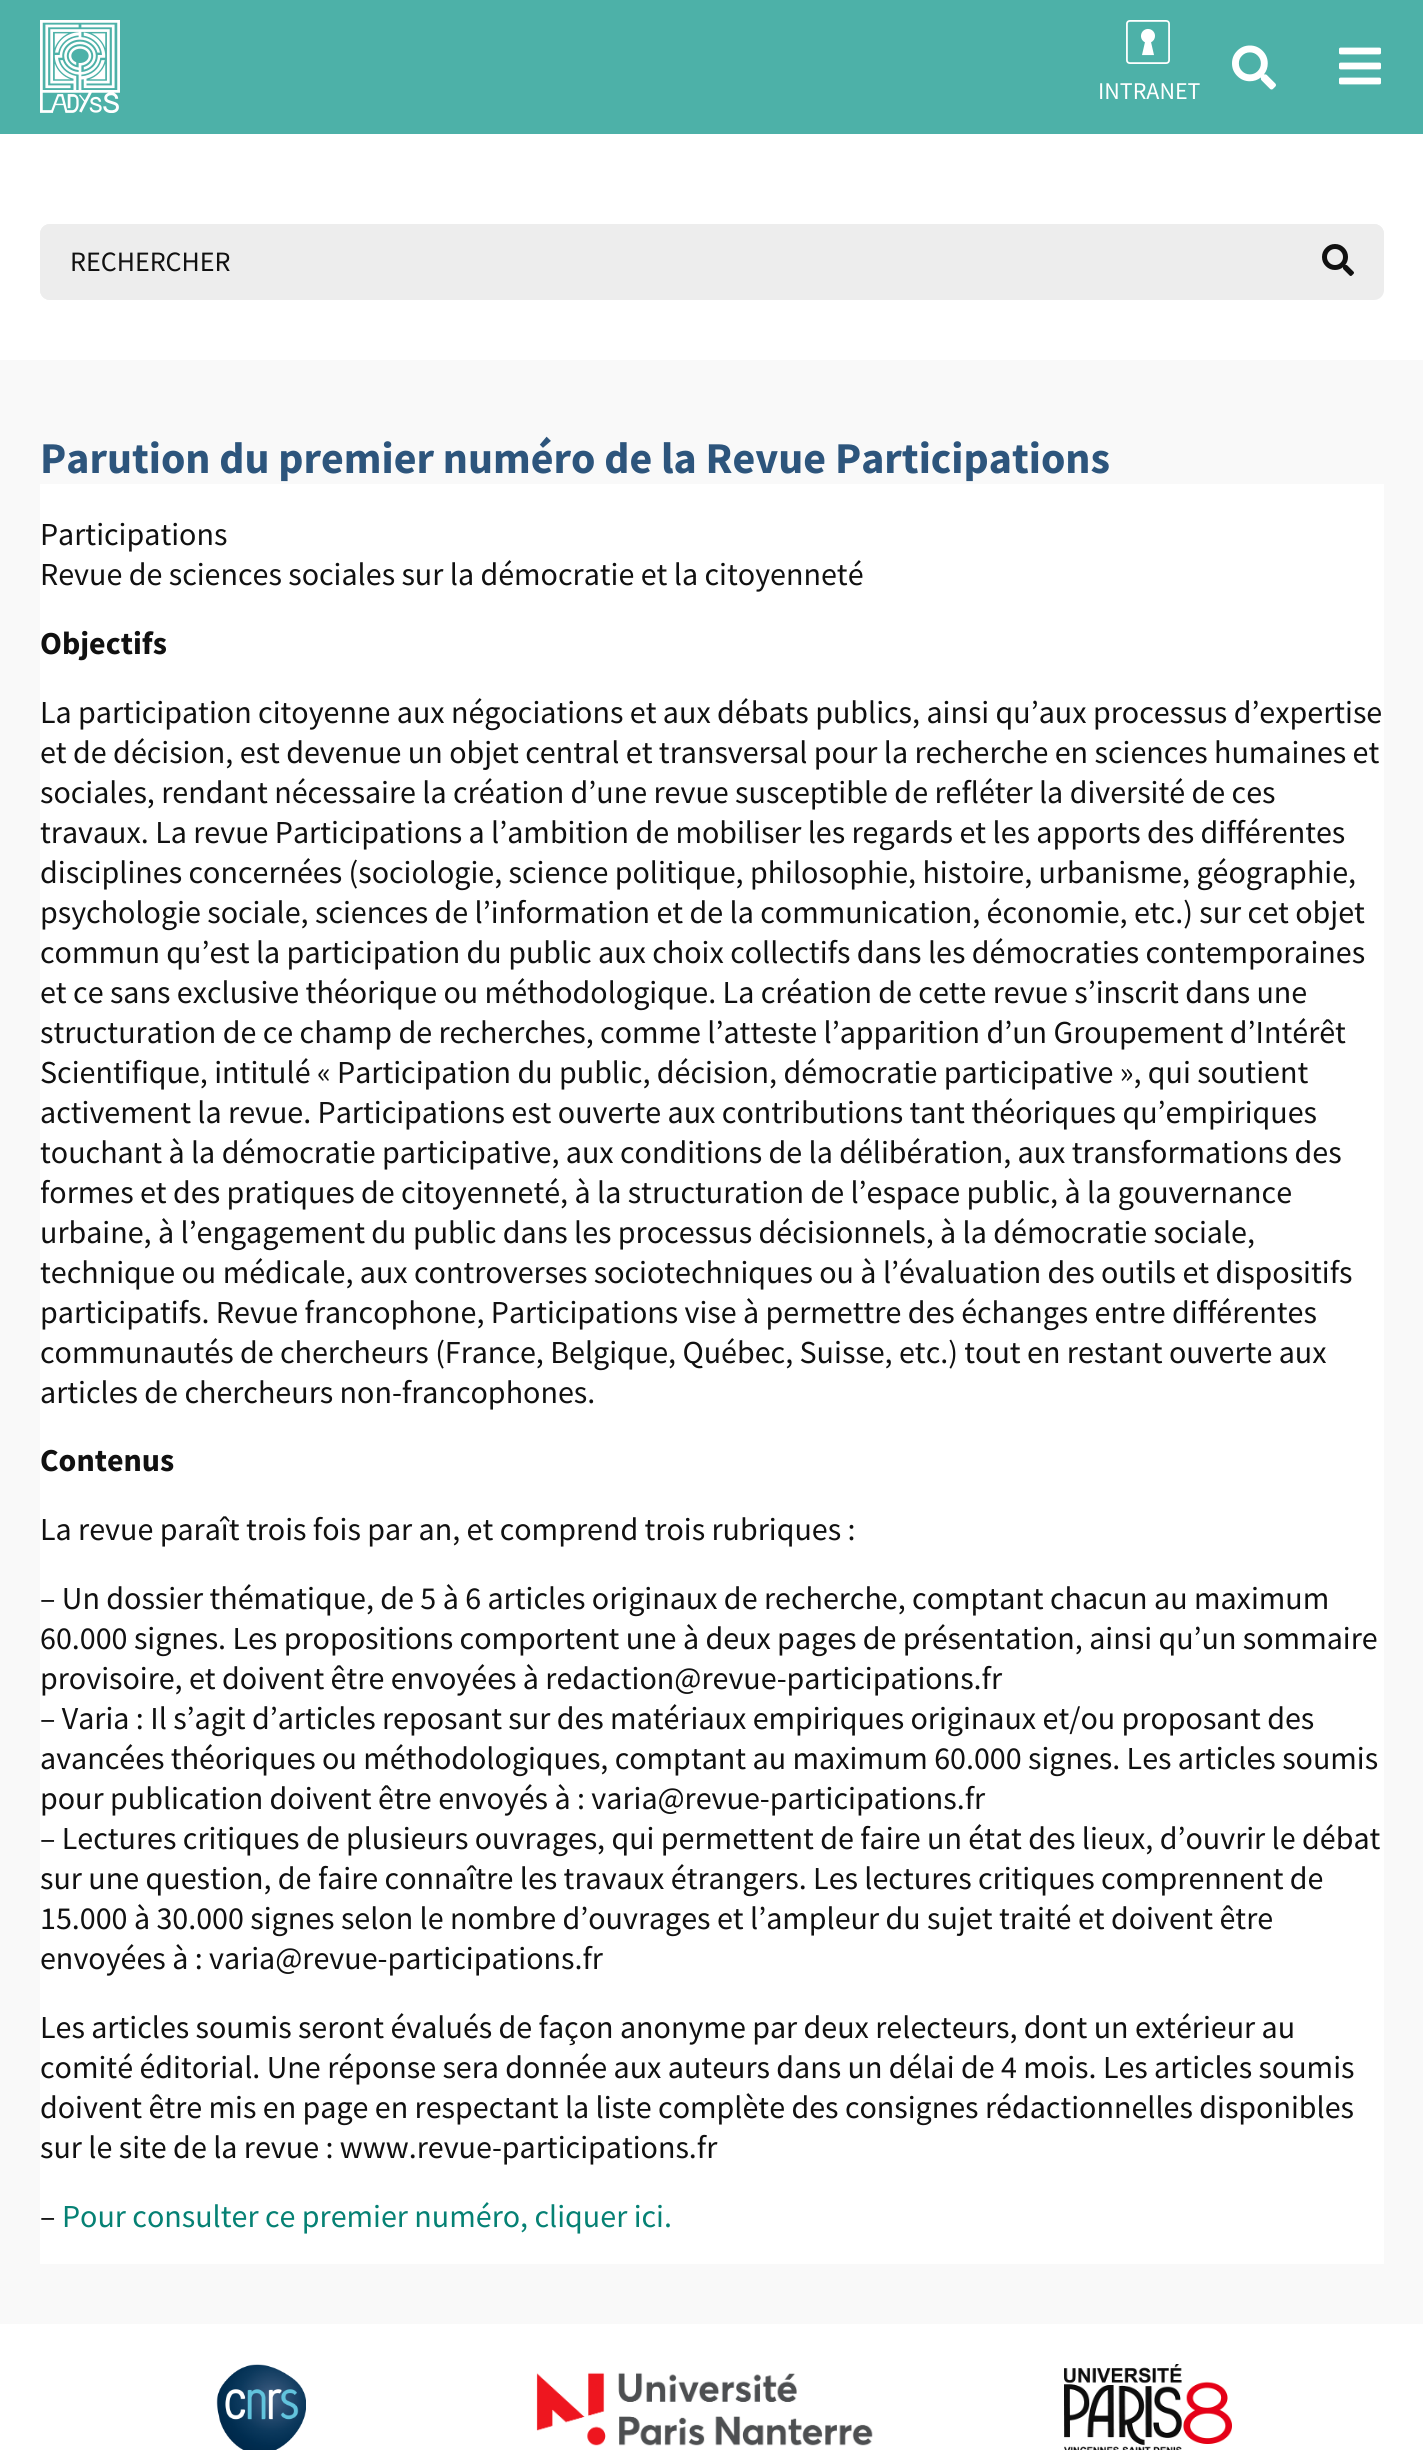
#include <cairo.h>
#include <math.h>
#include <stddef.h>

static cairo_t *ctx;

static void use_color(int r, int g, int b) {
    cairo_set_source_rgb(ctx, r / 255.0, g / 255.0, b / 255.0);
}

static void round_rect(double x, double y, double w, double h, double r) {
    cairo_new_sub_path(ctx);
    cairo_arc(ctx, x + w - r, y + h - r, r, 0, M_PI / 2);
    cairo_arc(ctx, x + r, y + h - r, r, M_PI / 2, M_PI);
    cairo_arc(ctx, x + r, y + r, r, M_PI, 1.5 * M_PI);
    cairo_arc(ctx, x + w - r, y + r, r, 1.5 * M_PI, 2 * M_PI);
    cairo_close_path(ctx);
}

static void picture(const char *path, double x, double y, double w, double h) {
    cairo_surface_t *image = cairo_image_surface_create_from_png(path);
    cairo_save(ctx);
    cairo_set_source_surface(ctx, image, x, y);
    cairo_rectangle(ctx, x, y, w, h);
    cairo_fill(ctx);
    cairo_restore(ctx);
    cairo_surface_destroy(image);
}

int main(void) {
    cairo_surface_t *surface = cairo_image_surface_create(CAIRO_FORMAT_RGB24, 1423, 2450);
    ctx = cairo_create(surface);
    cairo_font_options_t *options = cairo_font_options_create();
    cairo_font_options_set_hint_metrics(options, CAIRO_HINT_METRICS_OFF);
    cairo_font_options_set_hint_style(options, CAIRO_HINT_STYLE_NONE);
    cairo_set_font_options(ctx, options);
    cairo_set_miter_limit(ctx, 4);
    use_color(255, 255, 255);
    cairo_paint(ctx);
    use_color(77, 177, 168);
    cairo_rectangle(ctx, 0, 0, 1423, 134);
    cairo_fill(ctx);
    picture("img1.png", 40, 20, 80, 93);
    picture("img2.png", 1232, 45, 44, 45);
    picture("img3.png", 1339, 47, 42, 38);
    picture("img4.png", 1126, 20, 44, 44);
    cairo_select_font_face(ctx, "Source Sans Pro", CAIRO_FONT_SLANT_NORMAL, CAIRO_FONT_WEIGHT_NORMAL);
    cairo_set_font_size(ctx, 24);
    use_color(255, 255, 255);
    cairo_move_to(ctx, 1098, 99);
    cairo_show_text(ctx, "INTRANET");
    use_color(237, 237, 237);
    round_rect(40, 224, 1344, 76, 10);
    cairo_fill(ctx);
    round_rect(40, 224, 1252, 76, 10);
    cairo_fill(ctx);
    cairo_set_font_size(ctx, 28);
    use_color(17, 17, 17);
    cairo_move_to(ctx, 70, 271);
    cairo_show_text(ctx, "RECHERCHER");
    use_color(237, 237, 237);
    round_rect(1292, 224, 92, 74, 10);
    cairo_fill(ctx);
    picture("img5.png", 1322, 244, 32, 32);
    use_color(249, 249, 249);
    cairo_rectangle(ctx, 0, 360, 1423, 1964);
    cairo_fill(ctx);
    cairo_select_font_face(ctx, "Source Sans Pro", CAIRO_FONT_SLANT_NORMAL, CAIRO_FONT_WEIGHT_BOLD);
    cairo_set_font_size(ctx, 44);
    use_color(45, 85, 124);
    cairo_move_to(ctx, 40, 473);
    cairo_show_text(ctx, "Parution du premier numéro de la Revue Participations");
    use_color(255, 255, 255);
    cairo_rectangle(ctx, 40, 484, 1344, 1780);
    cairo_fill(ctx);
    cairo_select_font_face(ctx, "Source Sans Pro", CAIRO_FONT_SLANT_NORMAL, CAIRO_FONT_WEIGHT_NORMAL);
    cairo_set_font_size(ctx, 32);
    use_color(17, 17, 17);
    cairo_move_to(ctx, 40, 545);
    cairo_show_text(ctx, "Participations");
    cairo_move_to(ctx, 40, 585);
    cairo_show_text(ctx, "Revue de sciences sociales sur la démocratie et la citoyenneté");
    cairo_select_font_face(ctx, "Source Sans Pro", CAIRO_FONT_SLANT_NORMAL, CAIRO_FONT_WEIGHT_BOLD);
    cairo_move_to(ctx, 40, 654);
    cairo_show_text(ctx, "Objectifs");
    cairo_select_font_face(ctx, "Source Sans Pro", CAIRO_FONT_SLANT_NORMAL, CAIRO_FONT_WEIGHT_NORMAL);
    cairo_move_to(ctx, 40, 723);
    cairo_show_text(ctx, "La participation citoyenne aux négociations et aux débats publics, ainsi qu’aux processus d’expertise");
    cairo_move_to(ctx, 40, 763);
    cairo_show_text(ctx, "et de décision, est devenue un objet central et transversal pour la recherche en sciences humaines et");
    cairo_move_to(ctx, 40, 803);
    cairo_show_text(ctx, "sociales, rendant nécessaire la création d’une revue susceptible de refléter la diversité de ces");
    cairo_move_to(ctx, 40, 843);
    cairo_show_text(ctx, "travaux. La revue Participations a l’ambition de mobiliser les regards et les apports des différentes");
    cairo_move_to(ctx, 40, 883);
    cairo_show_text(ctx, "disciplines concernées (sociologie, science politique, philosophie, histoire, urbanisme, géographie,");
    cairo_move_to(ctx, 40, 923);
    cairo_show_text(ctx, "psychologie sociale, sciences de l’information et de la communication, économie, etc.) sur cet objet");
    cairo_move_to(ctx, 40, 963);
    cairo_show_text(ctx, "commun qu’est la participation du public aux choix collectifs dans les démocraties contemporaines");
    cairo_move_to(ctx, 40, 1003);
    cairo_show_text(ctx, "et ce sans exclusive théorique ou méthodologique. La création de cette revue s’inscrit dans une");
    cairo_move_to(ctx, 40, 1043);
    cairo_show_text(ctx, "structuration de ce champ de recherches, comme l’atteste l’apparition d’un Groupement d’Intérêt");
    cairo_move_to(ctx, 40, 1083);
    cairo_show_text(ctx, "Scientifique, intitulé « Participation du public, décision, démocratie participative », qui soutient");
    cairo_move_to(ctx, 40, 1123);
    cairo_show_text(ctx, "activement la revue. Participations est ouverte aux contributions tant théoriques qu’empiriques");
    cairo_move_to(ctx, 40, 1163);
    cairo_show_text(ctx, "touchant à la démocratie participative, aux conditions de la délibération, aux transformations des");
    cairo_move_to(ctx, 40, 1203);
    cairo_show_text(ctx, "formes et des pratiques de citoyenneté, à la structuration de l’espace public, à la gouvernance");
    cairo_move_to(ctx, 40, 1243);
    cairo_show_text(ctx, "urbaine, à l’engagement du public dans les processus décisionnels, à la démocratie sociale,");
    cairo_move_to(ctx, 40, 1283);
    cairo_show_text(ctx, "technique ou médicale, aux controverses sociotechniques ou à l’évaluation des outils et dispositifs");
    cairo_move_to(ctx, 40, 1323);
    cairo_show_text(ctx, "participatifs. Revue francophone, Participations vise à permettre des échanges entre différentes");
    cairo_move_to(ctx, 40, 1363);
    cairo_show_text(ctx, "communautés de chercheurs (France, Belgique, Québec, Suisse, etc.) tout en restant ouverte aux");
    cairo_move_to(ctx, 40, 1403);
    cairo_show_text(ctx, "articles de chercheurs non-francophones.");
    cairo_select_font_face(ctx, "Source Sans Pro", CAIRO_FONT_SLANT_NORMAL, CAIRO_FONT_WEIGHT_BOLD);
    cairo_move_to(ctx, 40, 1471);
    cairo_show_text(ctx, "Contenus");
    cairo_select_font_face(ctx, "Source Sans Pro", CAIRO_FONT_SLANT_NORMAL, CAIRO_FONT_WEIGHT_NORMAL);
    cairo_move_to(ctx, 40, 1540);
    cairo_show_text(ctx, "La revue paraît trois fois par an, et comprend trois rubriques :");
    cairo_move_to(ctx, 40, 1609);
    cairo_show_text(ctx, "– Un dossier thématique, de 5 à 6 articles originaux de recherche, comptant chacun au maximum");
    cairo_move_to(ctx, 40, 1649);
    cairo_show_text(ctx, "60.000 signes. Les propositions comportent une à deux pages de présentation, ainsi qu’un sommaire");
    cairo_move_to(ctx, 40, 1689);
    cairo_show_text(ctx, "provisoire, et doivent être envoyées à redaction@revue-participations.fr");
    cairo_move_to(ctx, 40, 1729);
    cairo_show_text(ctx, "– Varia : Il s’agit d’articles reposant sur des matériaux empiriques originaux et/ou proposant des");
    cairo_move_to(ctx, 40, 1769);
    cairo_show_text(ctx, "avancées théoriques ou méthodologiques, comptant au maximum 60.000 signes. Les articles soumis");
    cairo_move_to(ctx, 40, 1809);
    cairo_show_text(ctx, "pour publication doivent être envoyés à : varia@revue-participations.fr");
    cairo_move_to(ctx, 40, 1849);
    cairo_show_text(ctx, "– Lectures critiques de plusieurs ouvrages, qui permettent de faire un état des lieux, d’ouvrir le débat");
    cairo_move_to(ctx, 40, 1889);
    cairo_show_text(ctx, "sur une question, de faire connaître les travaux étrangers. Les lectures critiques comprennent de");
    cairo_move_to(ctx, 40, 1929);
    cairo_show_text(ctx, "15.000 à 30.000 signes selon le nombre d’ouvrages et l’ampleur du sujet traité et doivent être");
    cairo_move_to(ctx, 40, 1969);
    cairo_show_text(ctx, "envoyées à : varia@revue-participations.fr");
    cairo_move_to(ctx, 40, 2038);
    cairo_show_text(ctx, "Les articles soumis seront évalués de façon anonyme par deux relecteurs, dont un extérieur au");
    cairo_move_to(ctx, 40, 2078);
    cairo_show_text(ctx, "comité éditorial. Une réponse sera donnée aux auteurs dans un délai de 4 mois. Les articles soumis");
    cairo_move_to(ctx, 40, 2118);
    cairo_show_text(ctx, "doivent être mis en page en respectant la liste complète des consignes rédactionnelles disponibles");
    cairo_move_to(ctx, 40, 2158);
    cairo_show_text(ctx, "sur le site de la revue : www.revue-participations.fr");
    cairo_move_to(ctx, 40, 2227);
    cairo_show_text(ctx, "–");
    use_color(5, 129, 116);
    cairo_move_to(ctx, 62, 2227);
    cairo_show_text(ctx, "Pour consulter ce premier numéro, cliquer ici.");
    picture("img6.png", 216, 2364, 90, 86);
    picture("img7.png", 536, 2372, 337, 74);
    picture("img8.png", 1064, 2364, 168, 86);
    cairo_surface_write_to_png(surface, "result.png");
    cairo_font_options_destroy(options);
    cairo_destroy(ctx);
    cairo_surface_destroy(surface);
    return 0;
}
